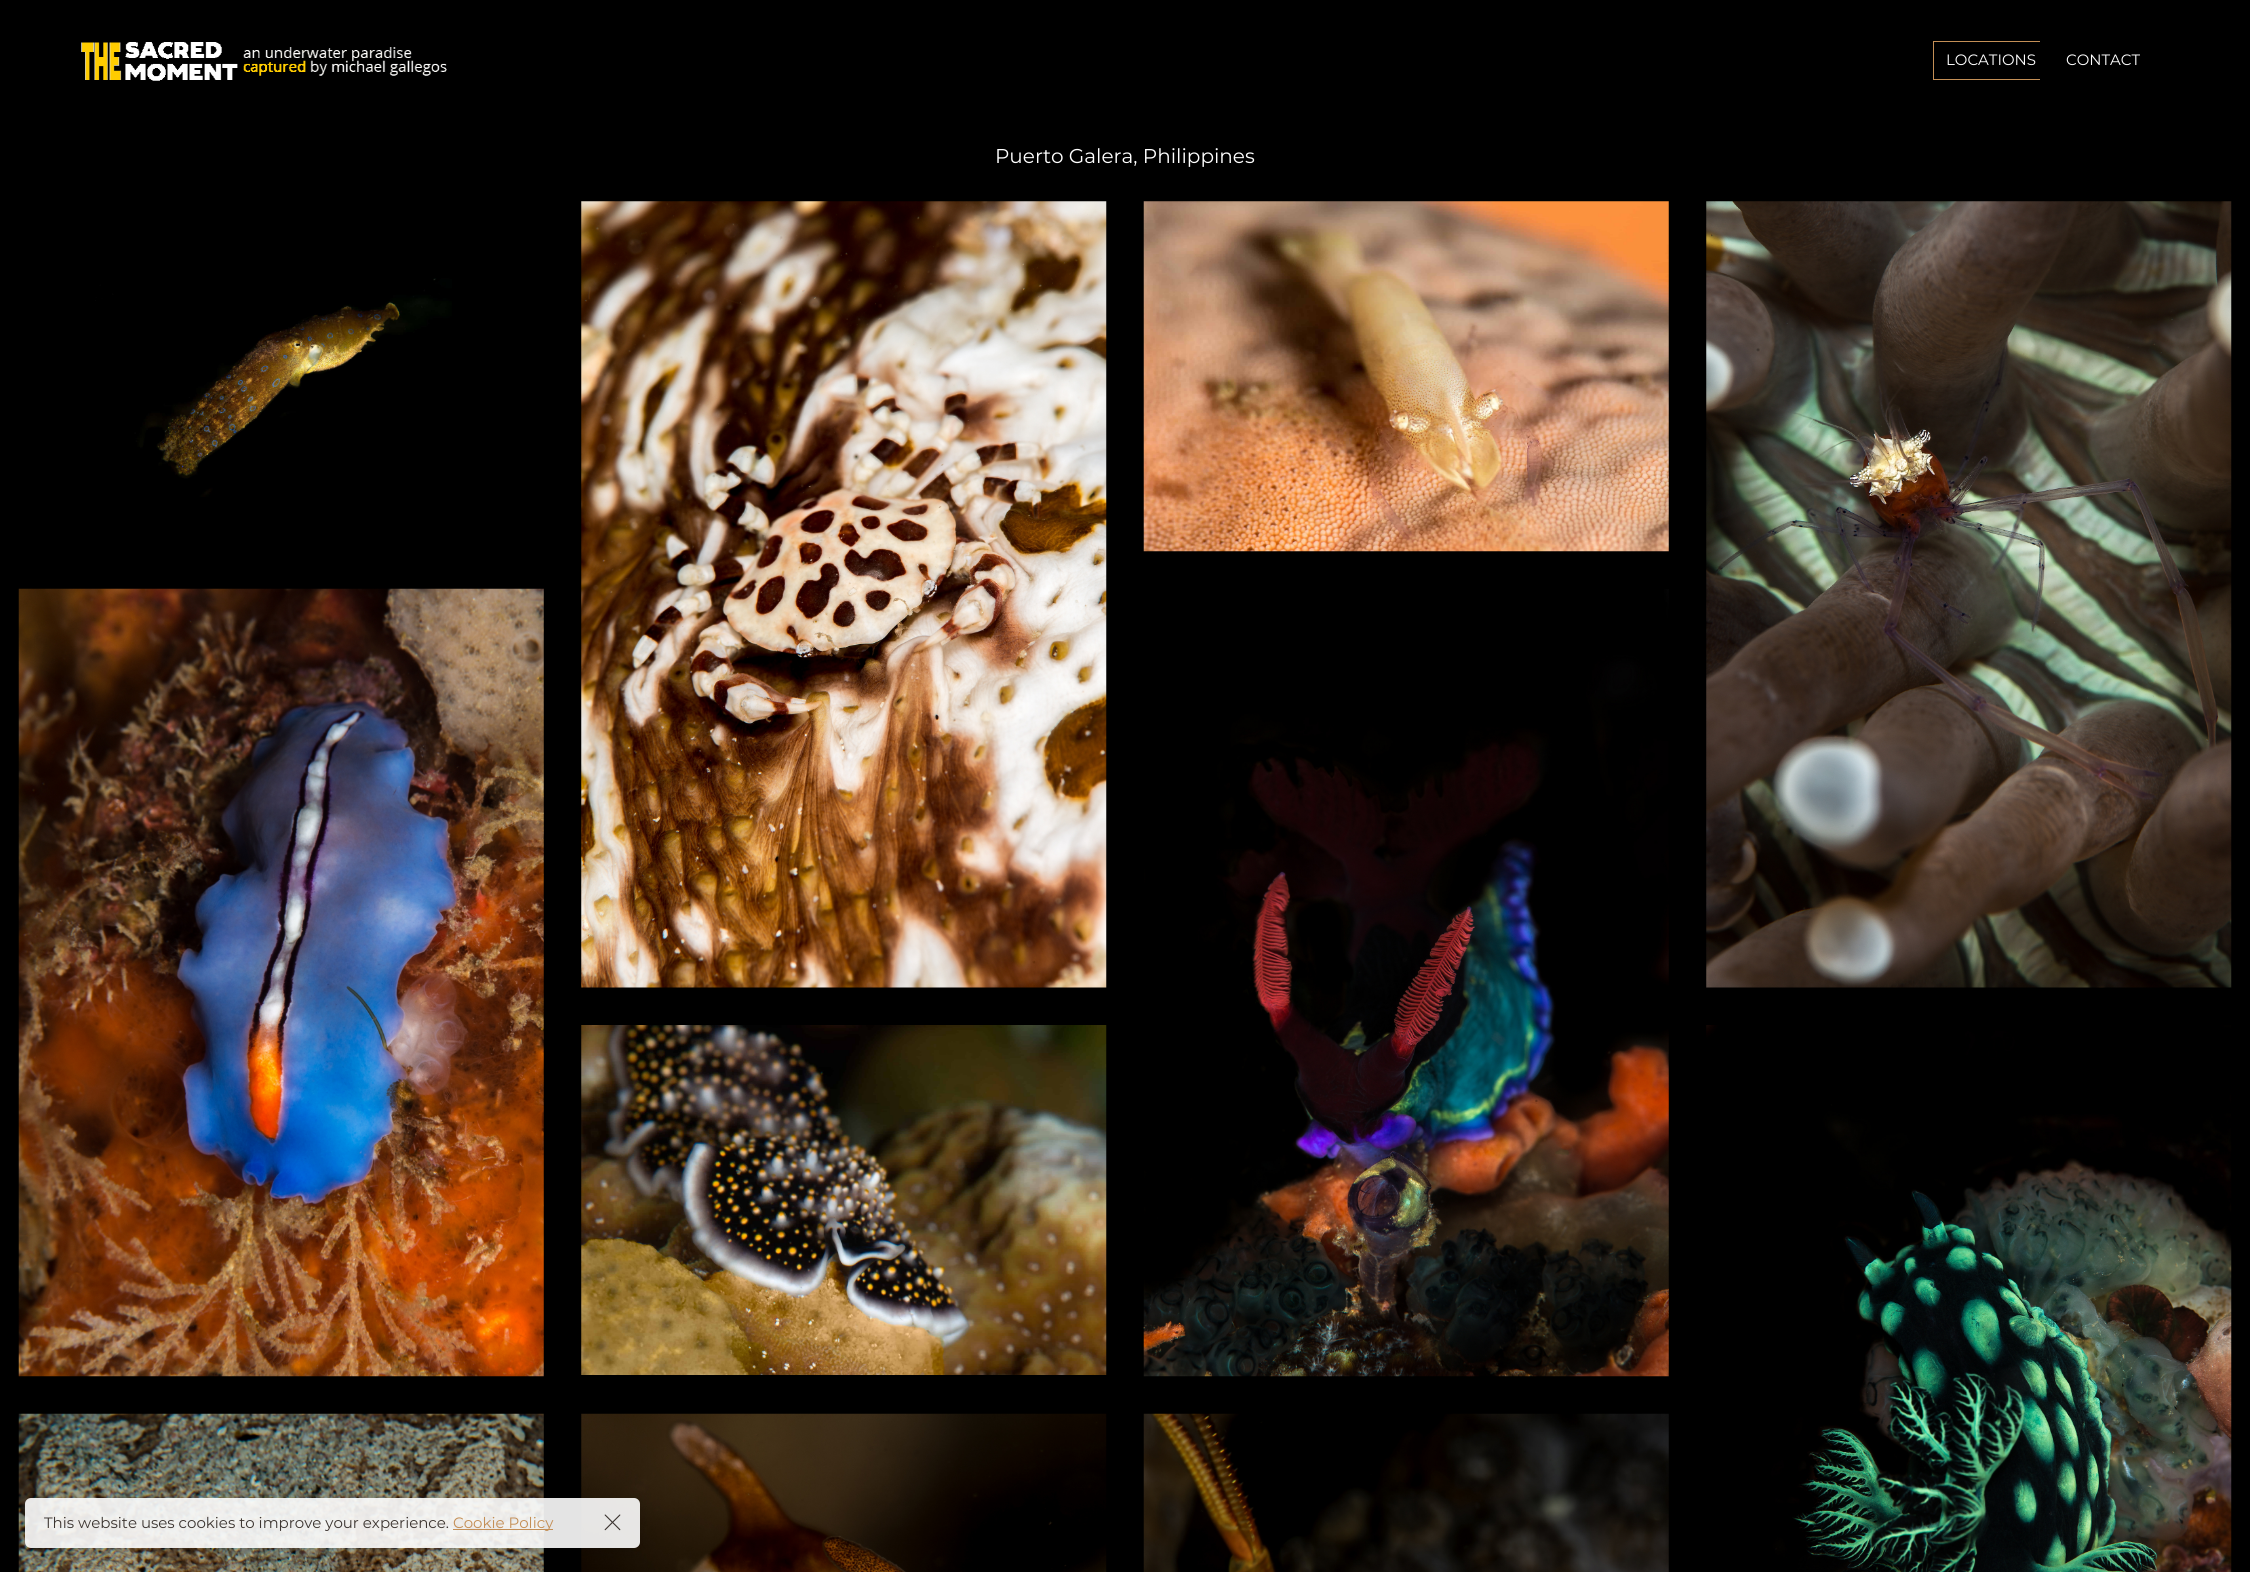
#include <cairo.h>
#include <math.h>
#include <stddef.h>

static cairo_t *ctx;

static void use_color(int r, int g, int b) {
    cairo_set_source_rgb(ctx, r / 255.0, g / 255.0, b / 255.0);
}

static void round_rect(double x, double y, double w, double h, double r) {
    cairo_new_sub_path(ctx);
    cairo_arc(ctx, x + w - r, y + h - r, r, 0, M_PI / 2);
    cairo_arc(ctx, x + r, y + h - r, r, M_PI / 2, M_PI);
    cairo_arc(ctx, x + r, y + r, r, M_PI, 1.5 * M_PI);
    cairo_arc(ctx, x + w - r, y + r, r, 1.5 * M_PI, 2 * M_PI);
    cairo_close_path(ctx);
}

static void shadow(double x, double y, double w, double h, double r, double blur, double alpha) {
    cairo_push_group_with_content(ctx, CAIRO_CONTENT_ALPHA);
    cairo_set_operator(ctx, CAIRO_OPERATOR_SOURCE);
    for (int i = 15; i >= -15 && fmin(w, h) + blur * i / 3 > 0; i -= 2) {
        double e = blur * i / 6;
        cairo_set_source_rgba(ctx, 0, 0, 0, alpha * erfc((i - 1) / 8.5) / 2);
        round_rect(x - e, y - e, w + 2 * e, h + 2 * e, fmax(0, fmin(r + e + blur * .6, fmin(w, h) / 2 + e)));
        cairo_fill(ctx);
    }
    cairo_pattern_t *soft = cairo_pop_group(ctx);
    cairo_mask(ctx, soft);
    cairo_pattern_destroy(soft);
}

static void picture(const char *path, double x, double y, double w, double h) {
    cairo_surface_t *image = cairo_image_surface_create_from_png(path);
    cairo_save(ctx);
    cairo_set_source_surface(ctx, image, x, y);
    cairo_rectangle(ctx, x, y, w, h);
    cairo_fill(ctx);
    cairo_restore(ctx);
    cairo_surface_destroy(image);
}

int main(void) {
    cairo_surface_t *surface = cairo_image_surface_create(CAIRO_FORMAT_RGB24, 2250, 1572);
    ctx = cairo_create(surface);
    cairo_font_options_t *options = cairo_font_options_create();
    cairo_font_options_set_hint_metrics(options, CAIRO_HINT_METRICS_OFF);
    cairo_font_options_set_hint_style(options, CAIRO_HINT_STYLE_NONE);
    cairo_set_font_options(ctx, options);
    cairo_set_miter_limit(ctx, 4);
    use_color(0, 0, 0);
    cairo_paint(ctx);
    picture("img1.png", 81, 42, 366, 39);
    use_color(196, 143, 86);
    cairo_rectangle(ctx, 1933, 41, 107, 1);
    cairo_fill(ctx);
    cairo_rectangle(ctx, 1933, 79, 107, 1);
    cairo_fill(ctx);
    cairo_rectangle(ctx, 1933, 41, 1, 39);
    cairo_fill(ctx);
    cairo_select_font_face(ctx, "Montserrat", CAIRO_FONT_SLANT_NORMAL, CAIRO_FONT_WEIGHT_NORMAL);
    cairo_set_font_size(ctx, 15);
    use_color(255, 255, 255);
    cairo_move_to(ctx, 1946, 65);
    cairo_show_text(ctx, "LOCATIONS");
    cairo_move_to(ctx, 2066, 65);
    cairo_show_text(ctx, "CONTACT");
    cairo_set_font_size(ctx, 20);
    cairo_move_to(ctx, 995, 163);
    cairo_show_text(ctx, "Puerto Galera, Philippines");
    picture("img2.png", 95, 278, 357, 219);
    picture("img3.png", 581, 201, 526, 787);
    picture("img4.png", 1143, 201, 526, 351);
    picture("img5.png", 1706, 201, 526, 787);
    picture("img6.png", 18, 588, 526, 789);
    picture("img7.png", 581, 1025, 526, 350);
    picture("img8.png", 1143, 589, 526, 788);
    picture("img9.png", 1706, 1025, 526, 547);
    picture("img10.png", 18, 1413, 526, 159);
    picture("img11.png", 581, 1413, 526, 159);
    picture("img12.png", 1143, 1413, 526, 159);
    cairo_save(ctx);
    cairo_set_fill_rule(ctx, CAIRO_FILL_RULE_EVEN_ODD);
    cairo_new_path(ctx);
    cairo_move_to(ctx, 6, 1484);
    cairo_line_to(ctx, 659, 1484);
    cairo_line_to(ctx, 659, 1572);
    cairo_line_to(ctx, 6, 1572);
    cairo_close_path(ctx);
    cairo_move_to(ctx, 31, 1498);
    cairo_line_to(ctx, 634, 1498);
    cairo_curve_to(ctx, 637.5, 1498, 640, 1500.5, 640, 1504);
    cairo_line_to(ctx, 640, 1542);
    cairo_curve_to(ctx, 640, 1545.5, 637.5, 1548, 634, 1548);
    cairo_line_to(ctx, 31, 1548);
    cairo_curve_to(ctx, 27.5, 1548, 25, 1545.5, 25, 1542);
    cairo_line_to(ctx, 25, 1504);
    cairo_curve_to(ctx, 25, 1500.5, 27.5, 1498, 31, 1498);
    cairo_close_path(ctx);
    cairo_clip(ctx);
    use_color(0, 0, 0);
    shadow(25, 1503, 615, 50, 6, 6, 0.1);
    cairo_restore(ctx);
    cairo_set_source_rgba(ctx, 0.992, 0.992, 0.992, 0.9);
    round_rect(25, 1498, 615, 50, 6);
    cairo_fill(ctx);
    cairo_set_font_size(ctx, 15);
    use_color(60, 53, 49);
    cairo_move_to(ctx, 44, 1528);
    cairo_show_text(ctx, "This website uses cookies to improve your experience.");
    use_color(196, 143, 86);
    cairo_rectangle(ctx, 453, 1529, 100, 1);
    cairo_fill(ctx);
    cairo_move_to(ctx, 453, 1528);
    cairo_show_text(ctx, "Cookie Policy");
    picture("img13.png", 604, 1514, 17, 17);
    cairo_surface_write_to_png(surface, "result.png");
    cairo_font_options_destroy(options);
    cairo_destroy(ctx);
    cairo_surface_destroy(surface);
    return 0;
}
